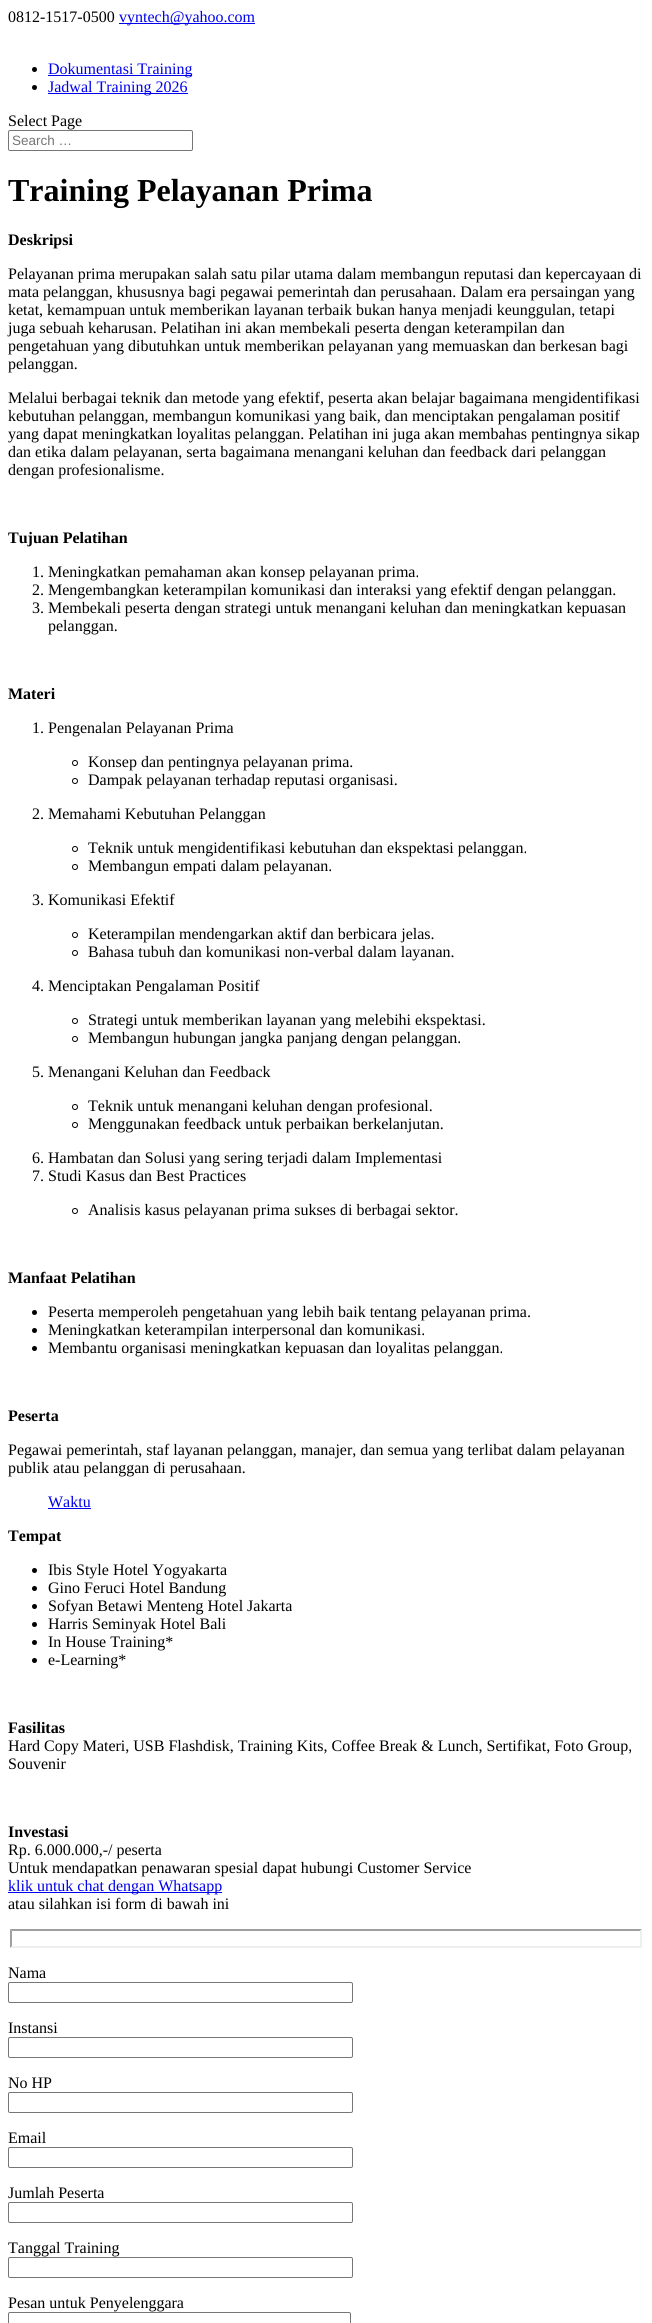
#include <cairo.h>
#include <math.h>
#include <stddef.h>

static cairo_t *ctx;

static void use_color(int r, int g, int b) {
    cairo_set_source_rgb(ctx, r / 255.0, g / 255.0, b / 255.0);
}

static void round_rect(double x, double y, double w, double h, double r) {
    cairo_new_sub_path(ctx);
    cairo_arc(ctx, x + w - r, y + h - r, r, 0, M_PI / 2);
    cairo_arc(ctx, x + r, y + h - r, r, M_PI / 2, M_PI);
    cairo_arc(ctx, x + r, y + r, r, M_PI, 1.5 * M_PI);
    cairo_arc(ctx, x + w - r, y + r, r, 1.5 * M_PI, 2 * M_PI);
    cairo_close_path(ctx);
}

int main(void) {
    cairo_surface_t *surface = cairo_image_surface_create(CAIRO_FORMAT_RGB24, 652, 2323);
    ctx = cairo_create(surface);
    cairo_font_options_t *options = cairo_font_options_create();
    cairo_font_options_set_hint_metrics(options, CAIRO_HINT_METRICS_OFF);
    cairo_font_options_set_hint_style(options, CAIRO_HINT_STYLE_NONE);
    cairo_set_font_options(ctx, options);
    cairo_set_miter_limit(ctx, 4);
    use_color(255, 255, 255);
    cairo_paint(ctx);
    cairo_select_font_face(ctx, "Liberation Serif", CAIRO_FONT_SLANT_NORMAL, CAIRO_FONT_WEIGHT_NORMAL);
    cairo_set_font_size(ctx, 16);
    use_color(0, 0, 0);
    cairo_move_to(ctx, 8, 22);
    cairo_show_text(ctx, "0812-1517-0500");
    use_color(0, 0, 238);
    cairo_rectangle(ctx, 119, 23, 136, 1);
    cairo_fill(ctx);
    cairo_move_to(ctx, 119, 22);
    cairo_show_text(ctx, "vyntech@yahoo.com");
    use_color(0, 0, 0);
    cairo_new_path(ctx);
    cairo_arc(ctx, 34.5, 69.5, 2.5, 0, 2 * M_PI);
    cairo_fill(ctx);
    use_color(0, 0, 238);
    cairo_rectangle(ctx, 48, 75, 144, 1);
    cairo_fill(ctx);
    cairo_move_to(ctx, 48, 74);
    cairo_show_text(ctx, "Dokumentasi Training");
    use_color(0, 0, 0);
    cairo_new_path(ctx);
    cairo_arc(ctx, 34.5, 87.5, 2.5, 0, 2 * M_PI);
    cairo_fill(ctx);
    use_color(0, 0, 238);
    cairo_rectangle(ctx, 48, 93, 140, 1);
    cairo_fill(ctx);
    cairo_move_to(ctx, 48, 92);
    cairo_show_text(ctx, "Jadwal Training 2026");
    use_color(0, 0, 0);
    cairo_move_to(ctx, 8, 126);
    cairo_show_text(ctx, "Select Page");
    round_rect(8.5, 130.5, 184, 20, 1.5);
    use_color(118, 118, 118);
    cairo_set_line_width(ctx, 1);
    cairo_stroke(ctx);
    cairo_select_font_face(ctx, "Liberation Sans", CAIRO_FONT_SLANT_NORMAL, CAIRO_FONT_WEIGHT_NORMAL);
    cairo_set_font_size(ctx, 13.5);
    use_color(117, 117, 117);
    cairo_move_to(ctx, 12, 145);
    cairo_show_text(ctx, "Search …");
    cairo_select_font_face(ctx, "Liberation Serif", CAIRO_FONT_SLANT_NORMAL, CAIRO_FONT_WEIGHT_BOLD);
    cairo_set_font_size(ctx, 32);
    use_color(0, 0, 0);
    cairo_move_to(ctx, 8, 201);
    cairo_show_text(ctx, "Training Pelayanan Prima");
    cairo_set_font_size(ctx, 16);
    cairo_move_to(ctx, 8, 245);
    cairo_show_text(ctx, "Deskripsi");
    cairo_select_font_face(ctx, "Liberation Serif", CAIRO_FONT_SLANT_NORMAL, CAIRO_FONT_WEIGHT_NORMAL);
    cairo_move_to(ctx, 8, 279);
    cairo_show_text(ctx, "Pelayanan prima merupakan salah satu pilar utama dalam membangun reputasi dan kepercayaan di");
    cairo_move_to(ctx, 8, 297);
    cairo_show_text(ctx, "mata pelanggan, khususnya bagi pegawai pemerintah dan perusahaan. Dalam era persaingan yang");
    cairo_move_to(ctx, 8, 315);
    cairo_show_text(ctx, "ketat, kemampuan untuk memberikan layanan terbaik bukan hanya menjadi keunggulan, tetapi");
    cairo_move_to(ctx, 8, 333);
    cairo_show_text(ctx, "juga sebuah keharusan. Pelatihan ini akan membekali peserta dengan keterampilan dan");
    cairo_move_to(ctx, 8, 351);
    cairo_show_text(ctx, "pengetahuan yang dibutuhkan untuk memberikan pelayanan yang memuaskan dan berkesan bagi");
    cairo_move_to(ctx, 8, 369);
    cairo_show_text(ctx, "pelanggan.");
    cairo_move_to(ctx, 8, 403);
    cairo_show_text(ctx, "Melalui berbagai teknik dan metode yang efektif, peserta akan belajar bagaimana mengidentifikasi");
    cairo_move_to(ctx, 8, 421);
    cairo_show_text(ctx, "kebutuhan pelanggan, membangun komunikasi yang baik, dan menciptakan pengalaman positif");
    cairo_move_to(ctx, 8, 439);
    cairo_show_text(ctx, "yang dapat meningkatkan loyalitas pelanggan. Pelatihan ini juga akan membahas pentingnya sikap");
    cairo_move_to(ctx, 8, 457);
    cairo_show_text(ctx, "dan etika dalam pelayanan, serta bagaimana menangani keluhan dan feedback dari pelanggan");
    cairo_move_to(ctx, 8, 475);
    cairo_show_text(ctx, "dengan profesionalisme.");
    cairo_select_font_face(ctx, "Liberation Serif", CAIRO_FONT_SLANT_NORMAL, CAIRO_FONT_WEIGHT_BOLD);
    cairo_move_to(ctx, 8, 543);
    cairo_show_text(ctx, "Tujuan Pelatihan");
    cairo_select_font_face(ctx, "Liberation Serif", CAIRO_FONT_SLANT_NORMAL, CAIRO_FONT_WEIGHT_NORMAL);
    cairo_move_to(ctx, 32, 577);
    cairo_show_text(ctx, "1. Meningkatkan pemahaman akan konsep pelayanan prima.");
    cairo_move_to(ctx, 32, 595);
    cairo_show_text(ctx, "2. Mengembangkan keterampilan komunikasi dan interaksi yang efektif dengan pelanggan.");
    cairo_move_to(ctx, 32, 613);
    cairo_show_text(ctx, "3. Membekali peserta dengan strategi untuk menangani keluhan dan meningkatkan kepuasan");
    cairo_move_to(ctx, 48, 631);
    cairo_show_text(ctx, "pelanggan.");
    cairo_select_font_face(ctx, "Liberation Serif", CAIRO_FONT_SLANT_NORMAL, CAIRO_FONT_WEIGHT_BOLD);
    cairo_move_to(ctx, 8, 699);
    cairo_show_text(ctx, "Materi");
    cairo_select_font_face(ctx, "Liberation Serif", CAIRO_FONT_SLANT_NORMAL, CAIRO_FONT_WEIGHT_NORMAL);
    cairo_move_to(ctx, 32, 733);
    cairo_show_text(ctx, "1. Pengenalan Pelayanan Prima");
    cairo_new_path(ctx);
    cairo_arc(ctx, 75, 763, 2.5, 0, 2 * M_PI);
    cairo_stroke(ctx);
    cairo_move_to(ctx, 88, 767);
    cairo_show_text(ctx, "Konsep dan pentingnya pelayanan prima.");
    cairo_new_path(ctx);
    cairo_arc(ctx, 75, 781, 2.5, 0, 2 * M_PI);
    cairo_stroke(ctx);
    cairo_move_to(ctx, 88, 785);
    cairo_show_text(ctx, "Dampak pelayanan terhadap reputasi organisasi.");
    cairo_move_to(ctx, 32, 819);
    cairo_show_text(ctx, "2. Memahami Kebutuhan Pelanggan");
    cairo_new_path(ctx);
    cairo_arc(ctx, 75, 849, 2.5, 0, 2 * M_PI);
    cairo_stroke(ctx);
    cairo_move_to(ctx, 88, 853);
    cairo_show_text(ctx, "Teknik untuk mengidentifikasi kebutuhan dan ekspektasi pelanggan.");
    cairo_new_path(ctx);
    cairo_arc(ctx, 75, 867, 2.5, 0, 2 * M_PI);
    cairo_stroke(ctx);
    cairo_move_to(ctx, 88, 871);
    cairo_show_text(ctx, "Membangun empati dalam pelayanan.");
    cairo_move_to(ctx, 32, 905);
    cairo_show_text(ctx, "3. Komunikasi Efektif");
    cairo_new_path(ctx);
    cairo_arc(ctx, 75, 935, 2.5, 0, 2 * M_PI);
    cairo_stroke(ctx);
    cairo_move_to(ctx, 88, 939);
    cairo_show_text(ctx, "Keterampilan mendengarkan aktif dan berbicara jelas.");
    cairo_new_path(ctx);
    cairo_arc(ctx, 75, 953, 2.5, 0, 2 * M_PI);
    cairo_stroke(ctx);
    cairo_move_to(ctx, 88, 957);
    cairo_show_text(ctx, "Bahasa tubuh dan komunikasi non-verbal dalam layanan.");
    cairo_move_to(ctx, 32, 991);
    cairo_show_text(ctx, "4. Menciptakan Pengalaman Positif");
    cairo_new_path(ctx);
    cairo_arc(ctx, 75, 1021, 2.5, 0, 2 * M_PI);
    cairo_stroke(ctx);
    cairo_move_to(ctx, 88, 1025);
    cairo_show_text(ctx, "Strategi untuk memberikan layanan yang melebihi ekspektasi.");
    cairo_new_path(ctx);
    cairo_arc(ctx, 75, 1039, 2.5, 0, 2 * M_PI);
    cairo_stroke(ctx);
    cairo_move_to(ctx, 88, 1043);
    cairo_show_text(ctx, "Membangun hubungan jangka panjang dengan pelanggan.");
    cairo_move_to(ctx, 32, 1077);
    cairo_show_text(ctx, "5. Menangani Keluhan dan Feedback");
    cairo_new_path(ctx);
    cairo_arc(ctx, 75, 1107, 2.5, 0, 2 * M_PI);
    cairo_stroke(ctx);
    cairo_move_to(ctx, 88, 1111);
    cairo_show_text(ctx, "Teknik untuk menangani keluhan dengan profesional.");
    cairo_new_path(ctx);
    cairo_arc(ctx, 75, 1125, 2.5, 0, 2 * M_PI);
    cairo_stroke(ctx);
    cairo_move_to(ctx, 88, 1129);
    cairo_show_text(ctx, "Menggunakan feedback untuk perbaikan berkelanjutan.");
    cairo_move_to(ctx, 32, 1163);
    cairo_show_text(ctx, "6. Hambatan dan Solusi yang sering terjadi dalam Implementasi");
    cairo_move_to(ctx, 32, 1181);
    cairo_show_text(ctx, "7. Studi Kasus dan Best Practices");
    cairo_new_path(ctx);
    cairo_arc(ctx, 75, 1211, 2.5, 0, 2 * M_PI);
    cairo_stroke(ctx);
    cairo_move_to(ctx, 88, 1215);
    cairo_show_text(ctx, "Analisis kasus pelayanan prima sukses di berbagai sektor.");
    cairo_select_font_face(ctx, "Liberation Serif", CAIRO_FONT_SLANT_NORMAL, CAIRO_FONT_WEIGHT_BOLD);
    cairo_move_to(ctx, 8, 1283);
    cairo_show_text(ctx, "Manfaat Pelatihan");
    cairo_new_path(ctx);
    cairo_arc(ctx, 34.5, 1312.5, 2.5, 0, 2 * M_PI);
    cairo_fill(ctx);
    cairo_select_font_face(ctx, "Liberation Serif", CAIRO_FONT_SLANT_NORMAL, CAIRO_FONT_WEIGHT_NORMAL);
    cairo_move_to(ctx, 48, 1317);
    cairo_show_text(ctx, "Peserta memperoleh pengetahuan yang lebih baik tentang pelayanan prima.");
    cairo_new_path(ctx);
    cairo_arc(ctx, 34.5, 1330.5, 2.5, 0, 2 * M_PI);
    cairo_fill(ctx);
    cairo_move_to(ctx, 48, 1335);
    cairo_show_text(ctx, "Meningkatkan keterampilan interpersonal dan komunikasi.");
    cairo_new_path(ctx);
    cairo_arc(ctx, 34.5, 1348.5, 2.5, 0, 2 * M_PI);
    cairo_fill(ctx);
    cairo_move_to(ctx, 48, 1353);
    cairo_show_text(ctx, "Membantu organisasi meningkatkan kepuasan dan loyalitas pelanggan.");
    cairo_select_font_face(ctx, "Liberation Serif", CAIRO_FONT_SLANT_NORMAL, CAIRO_FONT_WEIGHT_BOLD);
    cairo_move_to(ctx, 8, 1421);
    cairo_show_text(ctx, "Peserta");
    cairo_select_font_face(ctx, "Liberation Serif", CAIRO_FONT_SLANT_NORMAL, CAIRO_FONT_WEIGHT_NORMAL);
    cairo_move_to(ctx, 8, 1455);
    cairo_show_text(ctx, "Pegawai pemerintah, staf layanan pelanggan, manajer, dan semua yang terlibat dalam pelayanan");
    cairo_move_to(ctx, 8, 1473);
    cairo_show_text(ctx, "publik atau pelanggan di perusahaan.");
    use_color(0, 0, 238);
    cairo_move_to(ctx, 48, 1507);
    cairo_show_text(ctx, "Waktu");
    cairo_rectangle(ctx, 48, 1508, 43, 1);
    cairo_fill(ctx);
    cairo_select_font_face(ctx, "Liberation Serif", CAIRO_FONT_SLANT_NORMAL, CAIRO_FONT_WEIGHT_BOLD);
    use_color(0, 0, 0);
    cairo_move_to(ctx, 8, 1541);
    cairo_show_text(ctx, "Tempat");
    cairo_new_path(ctx);
    cairo_arc(ctx, 34.5, 1570.5, 2.5, 0, 2 * M_PI);
    cairo_fill(ctx);
    cairo_select_font_face(ctx, "Liberation Serif", CAIRO_FONT_SLANT_NORMAL, CAIRO_FONT_WEIGHT_NORMAL);
    cairo_move_to(ctx, 48, 1575);
    cairo_show_text(ctx, "Ibis Style Hotel Yogyakarta");
    cairo_new_path(ctx);
    cairo_arc(ctx, 34.5, 1588.5, 2.5, 0, 2 * M_PI);
    cairo_fill(ctx);
    cairo_move_to(ctx, 48, 1593);
    cairo_show_text(ctx, "Gino Feruci Hotel Bandung");
    cairo_new_path(ctx);
    cairo_arc(ctx, 34.5, 1606.5, 2.5, 0, 2 * M_PI);
    cairo_fill(ctx);
    cairo_move_to(ctx, 48, 1611);
    cairo_show_text(ctx, "Sofyan Betawi Menteng Hotel Jakarta");
    cairo_new_path(ctx);
    cairo_arc(ctx, 34.5, 1624.5, 2.5, 0, 2 * M_PI);
    cairo_fill(ctx);
    cairo_move_to(ctx, 48, 1629);
    cairo_show_text(ctx, "Harris Seminyak Hotel Bali");
    cairo_new_path(ctx);
    cairo_arc(ctx, 34.5, 1642.5, 2.5, 0, 2 * M_PI);
    cairo_fill(ctx);
    cairo_move_to(ctx, 48, 1647);
    cairo_show_text(ctx, "In House Training*");
    cairo_new_path(ctx);
    cairo_arc(ctx, 34.5, 1660.5, 2.5, 0, 2 * M_PI);
    cairo_fill(ctx);
    cairo_move_to(ctx, 48, 1665);
    cairo_show_text(ctx, "e-Learning*");
    cairo_select_font_face(ctx, "Liberation Serif", CAIRO_FONT_SLANT_NORMAL, CAIRO_FONT_WEIGHT_BOLD);
    cairo_move_to(ctx, 8, 1733);
    cairo_show_text(ctx, "Fasilitas");
    cairo_select_font_face(ctx, "Liberation Serif", CAIRO_FONT_SLANT_NORMAL, CAIRO_FONT_WEIGHT_NORMAL);
    cairo_move_to(ctx, 8, 1751);
    cairo_show_text(ctx, "Hard Copy Materi, USB Flashdisk, Training Kits, Coffee Break & Lunch, Sertifikat, Foto Group,");
    cairo_move_to(ctx, 8, 1769);
    cairo_show_text(ctx, "Souvenir");
    cairo_select_font_face(ctx, "Liberation Serif", CAIRO_FONT_SLANT_NORMAL, CAIRO_FONT_WEIGHT_BOLD);
    cairo_move_to(ctx, 8, 1837);
    cairo_show_text(ctx, "Investasi");
    cairo_select_font_face(ctx, "Liberation Serif", CAIRO_FONT_SLANT_NORMAL, CAIRO_FONT_WEIGHT_NORMAL);
    cairo_move_to(ctx, 8, 1855);
    cairo_show_text(ctx, "Rp. 6.000.000,-/ peserta");
    cairo_move_to(ctx, 8, 1873);
    cairo_show_text(ctx, "Untuk mendapatkan penawaran spesial dapat hubungi Customer Service");
    use_color(0, 0, 238);
    cairo_rectangle(ctx, 8, 1892, 214, 1);
    cairo_fill(ctx);
    cairo_move_to(ctx, 8, 1891);
    cairo_show_text(ctx, "klik untuk chat dengan Whatsapp");
    use_color(0, 0, 0);
    cairo_move_to(ctx, 8, 1909);
    cairo_show_text(ctx, "atau silahkan isi form di bawah ini");
    use_color(159, 159, 159);
    cairo_new_path(ctx);
    cairo_move_to(ctx, 10, 1929);
    cairo_line_to(ctx, 642, 1929);
    cairo_line_to(ctx, 640, 1931);
    cairo_line_to(ctx, 12, 1931);
    cairo_close_path(ctx);
    cairo_fill(ctx);
    use_color(239, 239, 239);
    cairo_new_path(ctx);
    cairo_move_to(ctx, 642, 1929);
    cairo_line_to(ctx, 642, 1948);
    cairo_line_to(ctx, 640, 1946);
    cairo_line_to(ctx, 640, 1931);
    cairo_close_path(ctx);
    cairo_fill(ctx);
    cairo_new_path(ctx);
    cairo_move_to(ctx, 642, 1948);
    cairo_line_to(ctx, 10, 1948);
    cairo_line_to(ctx, 12, 1946);
    cairo_line_to(ctx, 640, 1946);
    cairo_close_path(ctx);
    cairo_fill(ctx);
    use_color(159, 159, 159);
    cairo_new_path(ctx);
    cairo_move_to(ctx, 10, 1948);
    cairo_line_to(ctx, 10, 1929);
    cairo_line_to(ctx, 12, 1931);
    cairo_line_to(ctx, 12, 1946);
    cairo_close_path(ctx);
    cairo_fill(ctx);
    use_color(0, 0, 0);
    cairo_move_to(ctx, 8, 1978);
    cairo_show_text(ctx, "Nama");
    round_rect(8.5, 1982.5, 344, 20, 1.5);
    use_color(118, 118, 118);
    cairo_stroke(ctx);
    use_color(0, 0, 0);
    cairo_move_to(ctx, 8, 2033);
    cairo_show_text(ctx, "Instansi");
    round_rect(8.5, 2037.5, 344, 20, 1.5);
    use_color(118, 118, 118);
    cairo_stroke(ctx);
    use_color(0, 0, 0);
    cairo_move_to(ctx, 8, 2088);
    cairo_show_text(ctx, "No HP");
    round_rect(8.5, 2092.5, 344, 20, 1.5);
    use_color(118, 118, 118);
    cairo_stroke(ctx);
    use_color(0, 0, 0);
    cairo_move_to(ctx, 8, 2143);
    cairo_show_text(ctx, "Email");
    round_rect(8.5, 2147.5, 344, 20, 1.5);
    use_color(118, 118, 118);
    cairo_stroke(ctx);
    use_color(0, 0, 0);
    cairo_move_to(ctx, 8, 2198);
    cairo_show_text(ctx, "Jumlah Peserta");
    round_rect(8.5, 2202.5, 344, 20, 1.5);
    use_color(118, 118, 118);
    cairo_stroke(ctx);
    use_color(0, 0, 0);
    cairo_move_to(ctx, 8, 2253);
    cairo_show_text(ctx, "Tanggal Training");
    round_rect(8.5, 2257.5, 344, 20, 1.5);
    use_color(118, 118, 118);
    cairo_stroke(ctx);
    use_color(0, 0, 0);
    cairo_move_to(ctx, 8, 2308);
    cairo_show_text(ctx, "Pesan untuk Penyelenggara");
    round_rect(8.5, 2312.5, 342, 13, 1.5);
    use_color(118, 118, 118);
    cairo_stroke(ctx);
    cairo_surface_write_to_png(surface, "result.png");
    cairo_font_options_destroy(options);
    cairo_destroy(ctx);
    cairo_surface_destroy(surface);
    return 0;
}
